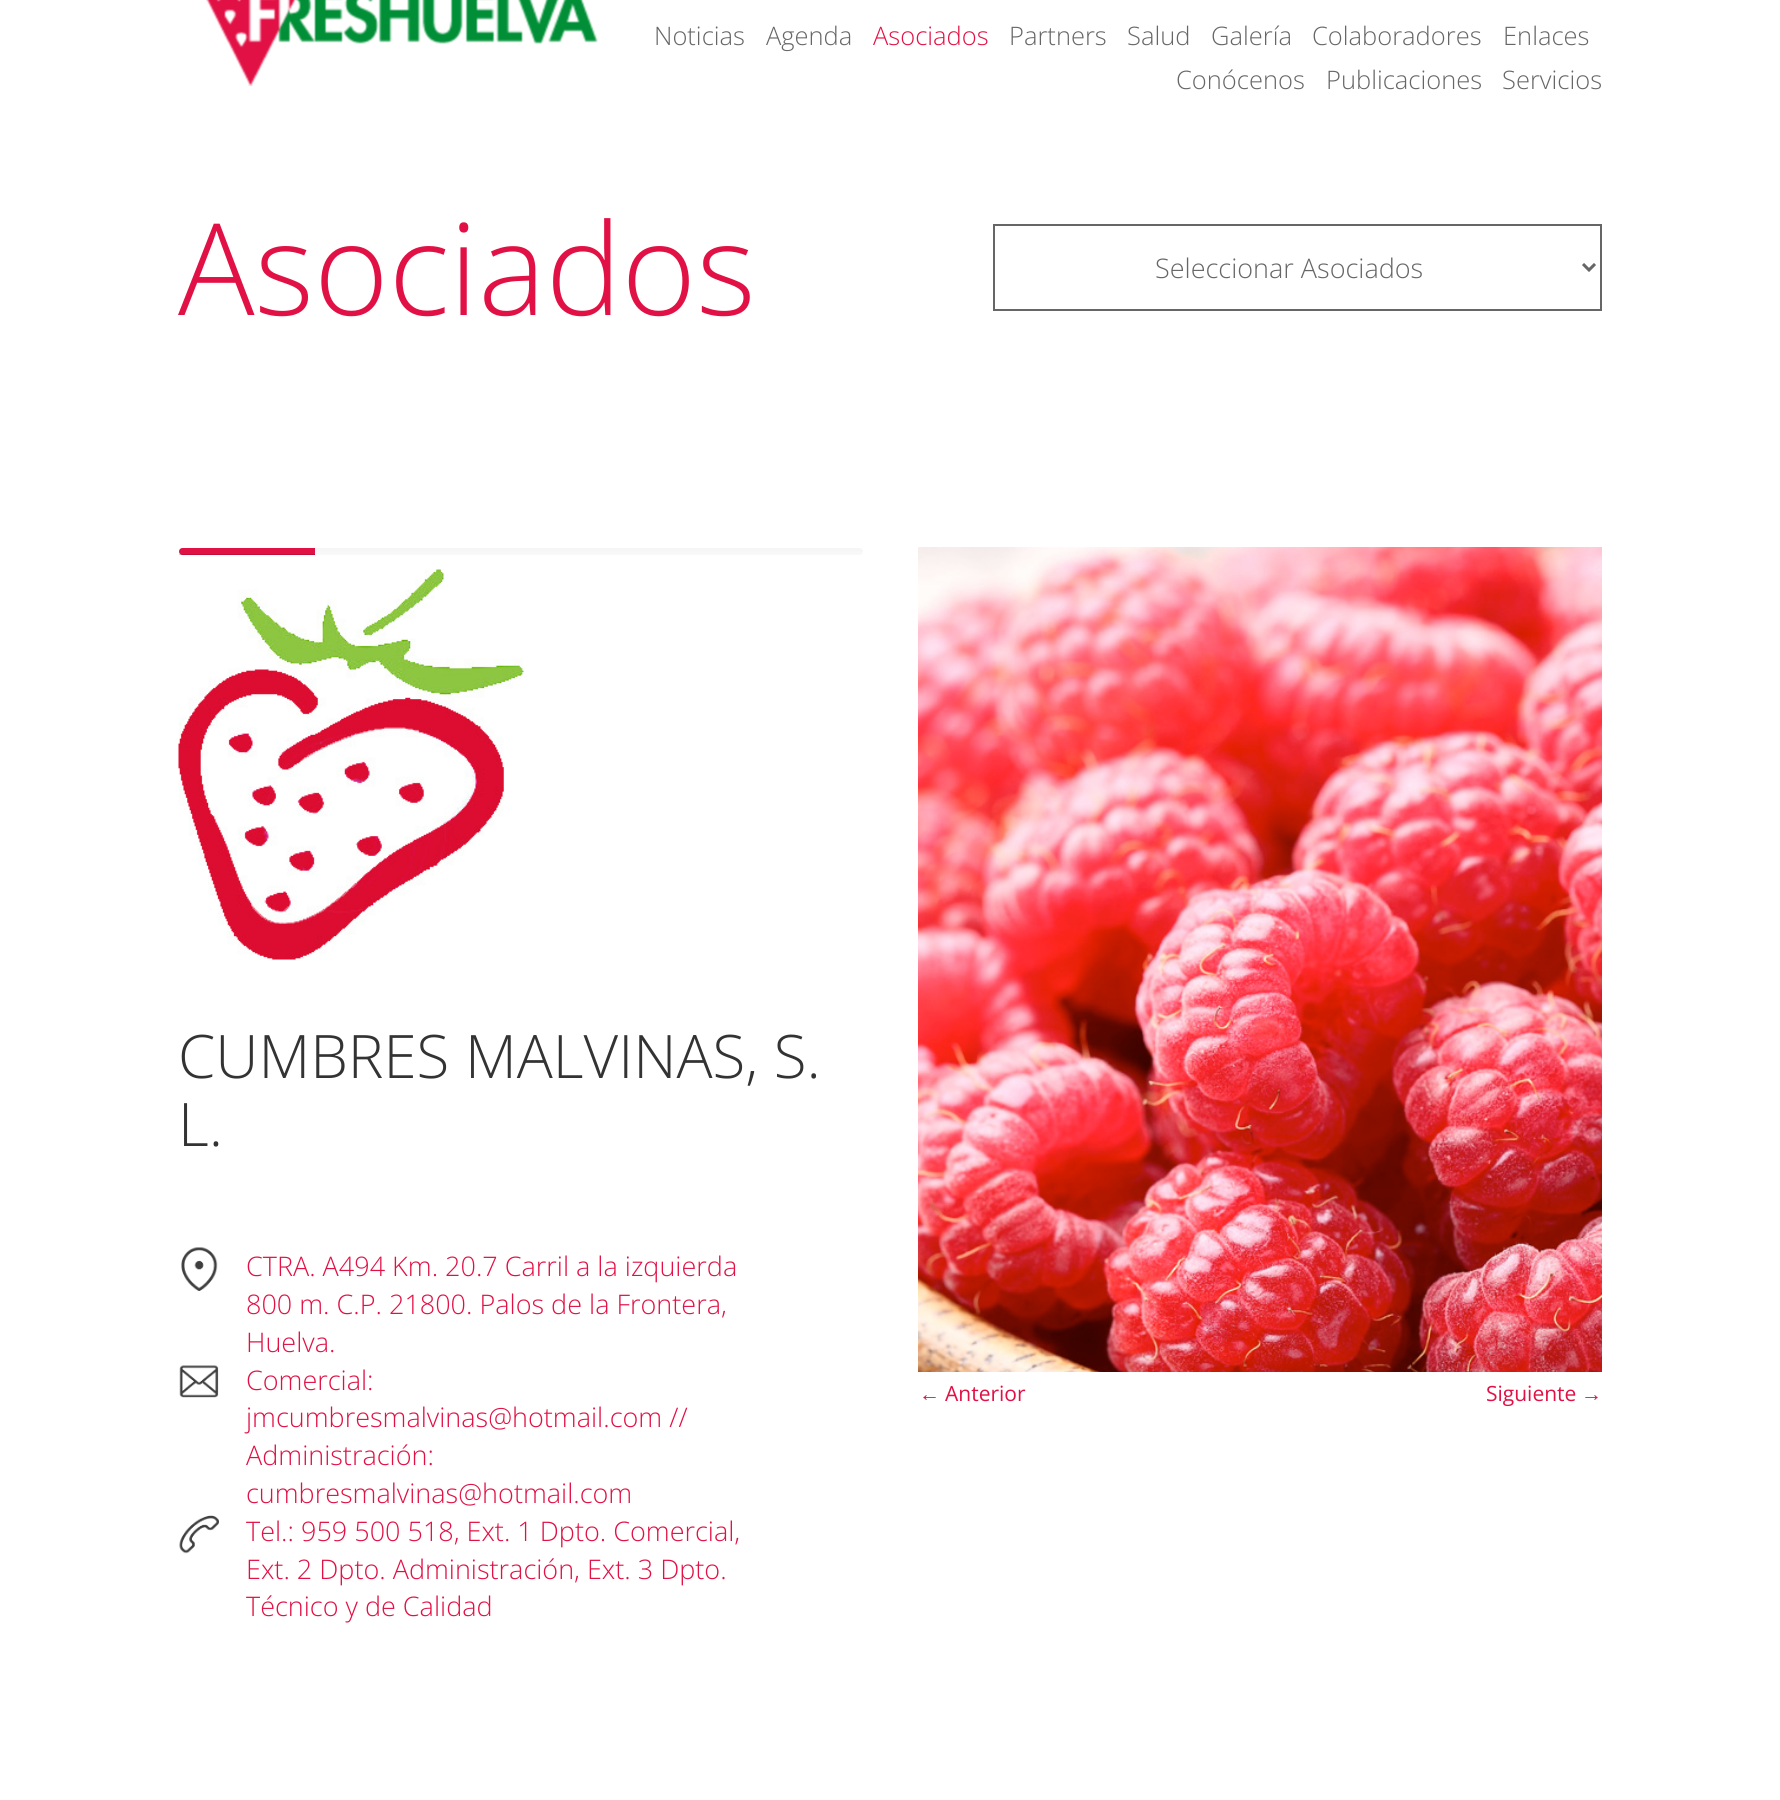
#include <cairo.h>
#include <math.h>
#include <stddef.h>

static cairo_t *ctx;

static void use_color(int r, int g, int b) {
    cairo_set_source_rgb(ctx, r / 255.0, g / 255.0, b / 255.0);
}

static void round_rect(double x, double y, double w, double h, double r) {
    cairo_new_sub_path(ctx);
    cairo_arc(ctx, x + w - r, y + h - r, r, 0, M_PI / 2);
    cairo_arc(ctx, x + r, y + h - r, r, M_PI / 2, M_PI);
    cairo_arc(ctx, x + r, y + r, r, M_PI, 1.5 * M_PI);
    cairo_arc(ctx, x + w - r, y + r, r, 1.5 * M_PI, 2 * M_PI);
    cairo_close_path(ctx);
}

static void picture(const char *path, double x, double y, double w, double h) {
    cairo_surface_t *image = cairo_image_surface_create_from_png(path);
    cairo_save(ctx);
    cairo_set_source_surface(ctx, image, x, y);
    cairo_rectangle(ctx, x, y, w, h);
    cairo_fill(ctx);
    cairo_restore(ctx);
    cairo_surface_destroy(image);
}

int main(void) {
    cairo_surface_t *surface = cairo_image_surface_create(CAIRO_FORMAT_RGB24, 1780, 1800);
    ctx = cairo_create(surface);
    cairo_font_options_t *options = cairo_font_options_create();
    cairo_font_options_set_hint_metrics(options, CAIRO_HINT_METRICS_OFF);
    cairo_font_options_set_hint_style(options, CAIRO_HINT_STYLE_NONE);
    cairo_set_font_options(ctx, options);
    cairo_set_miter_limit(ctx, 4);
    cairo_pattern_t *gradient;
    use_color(255, 255, 255);
    cairo_paint(ctx);
    picture("img1.png", 206, 0, 392, 86);
    cairo_select_font_face(ctx, "Open Sans Light", CAIRO_FONT_SLANT_NORMAL, CAIRO_FONT_WEIGHT_NORMAL);
    cairo_set_font_size(ctx, 25.5);
    use_color(102, 102, 102);
    cairo_move_to(ctx, 654, 45);
    cairo_show_text(ctx, "Noticias");
    cairo_move_to(ctx, 766, 45);
    cairo_show_text(ctx, "Agenda");
    use_color(226, 17, 69);
    cairo_move_to(ctx, 873, 45);
    cairo_show_text(ctx, "Asociados");
    use_color(102, 102, 102);
    cairo_move_to(ctx, 1009, 45);
    cairo_show_text(ctx, "Partners");
    cairo_move_to(ctx, 1127, 45);
    cairo_show_text(ctx, "Salud");
    cairo_move_to(ctx, 1211, 45);
    cairo_show_text(ctx, "Galería");
    cairo_move_to(ctx, 1312, 45);
    cairo_show_text(ctx, "Colaboradores");
    cairo_move_to(ctx, 1503, 45);
    cairo_show_text(ctx, "Enlaces");
    cairo_move_to(ctx, 1176, 89);
    cairo_show_text(ctx, "Conócenos");
    cairo_move_to(ctx, 1326, 89);
    cairo_show_text(ctx, "Publicaciones");
    cairo_move_to(ctx, 1502, 89);
    cairo_show_text(ctx, "Servicios");
    cairo_set_font_size(ctx, 127.5);
    use_color(226, 17, 69);
    cairo_move_to(ctx, 178, 315);
    cairo_show_text(ctx, "Asociados");
    cairo_rectangle(ctx, 994, 225, 607, 85);
    use_color(102, 102, 102);
    cairo_stroke(ctx);
    cairo_new_path(ctx);
    cairo_move_to(ctx, 1583, 264);
    cairo_line_to(ctx, 1589, 270);
    cairo_line_to(ctx, 1595, 264);
    cairo_set_line_width(ctx, 3);
    cairo_stroke(ctx);
    cairo_set_font_size(ctx, 27);
    cairo_move_to(ctx, 1155, 278);
    cairo_show_text(ctx, "Seleccionar Asociados");
    gradient = cairo_pattern_create_linear(521, 548, 521, 555);
    cairo_pattern_add_color_stop_rgba(gradient, 0, 0.961, 0.961, 0.961, 1);
    cairo_pattern_add_color_stop_rgba(gradient, 1, 0.976, 0.976, 0.976, 1);
    cairo_set_source(ctx, gradient);
    cairo_pattern_destroy(gradient);
    round_rect(179, 548, 684, 7, 3.5);
    cairo_fill(ctx);
    use_color(226, 17, 69);
    cairo_new_path(ctx);
    cairo_move_to(ctx, 182.5, 548);
    cairo_line_to(ctx, 315, 548);
    cairo_line_to(ctx, 315, 555);
    cairo_line_to(ctx, 182.5, 555);
    cairo_curve_to(ctx, 180.5, 555, 179, 553.5, 179, 551.5);
    cairo_curve_to(ctx, 179, 549.5, 180.5, 548, 182.5, 548);
    cairo_close_path(ctx);
    cairo_fill(ctx);
    cairo_set_source_rgba(ctx, 0, 0, 0, 0.15);
    cairo_rectangle(ctx, 179, 554, 136, 1);
    cairo_fill(ctx);
    picture("img2.png", 178, 569, 346, 391);
    cairo_set_font_size(ctx, 60);
    use_color(51, 51, 51);
    cairo_move_to(ctx, 178, 1078);
    cairo_show_text(ctx, "CUMBRES MALVINAS, S.");
    cairo_move_to(ctx, 178, 1146);
    cairo_show_text(ctx, "L.");
    picture("img3.png", 181, 1247, 37, 44);
    cairo_set_font_size(ctx, 27);
    use_color(226, 17, 69);
    cairo_move_to(ctx, 246, 1276);
    cairo_show_text(ctx, "CTRA. A494 Km. 20.7 Carril a la izquierda");
    cairo_move_to(ctx, 246, 1314);
    cairo_show_text(ctx, "800 m. C.P. 21800. Palos de la Frontera,");
    cairo_move_to(ctx, 246, 1352);
    cairo_show_text(ctx, "Huelva.");
    picture("img4.png", 179, 1365, 40, 33);
    cairo_move_to(ctx, 246, 1390);
    cairo_show_text(ctx, "Comercial:");
    cairo_move_to(ctx, 246, 1427);
    cairo_show_text(ctx, "jmcumbresmalvinas@hotmail.com //");
    cairo_move_to(ctx, 246, 1465);
    cairo_show_text(ctx, "Administración:");
    cairo_move_to(ctx, 246, 1503);
    cairo_show_text(ctx, "cumbresmalvinas@hotmail.com");
    picture("img5.png", 179, 1515, 40, 39);
    cairo_move_to(ctx, 246, 1541);
    cairo_show_text(ctx, "Tel.: 959 500 518, Ext. 1 Dpto. Comercial,");
    cairo_move_to(ctx, 246, 1579);
    cairo_show_text(ctx, "Ext. 2 Dpto. Administración, Ext. 3 Dpto.");
    cairo_move_to(ctx, 246, 1616);
    cairo_show_text(ctx, "Técnico y de Calidad");
    picture("img6.png", 918, 547, 684, 825);
    cairo_select_font_face(ctx, "Liberation Sans", CAIRO_FONT_SLANT_NORMAL, CAIRO_FONT_WEIGHT_NORMAL);
    cairo_set_font_size(ctx, 21);
    cairo_move_to(ctx, 919, 1401);
    cairo_show_text(ctx, "←");
    cairo_select_font_face(ctx, "Open Sans", CAIRO_FONT_SLANT_NORMAL, CAIRO_FONT_WEIGHT_NORMAL);
    cairo_move_to(ctx, 945, 1401);
    cairo_show_text(ctx, "Anterior");
    cairo_move_to(ctx, 1486, 1401);
    cairo_show_text(ctx, "Siguiente");
    cairo_select_font_face(ctx, "Liberation Sans", CAIRO_FONT_SLANT_NORMAL, CAIRO_FONT_WEIGHT_NORMAL);
    cairo_move_to(ctx, 1581, 1401);
    cairo_show_text(ctx, "→");
    cairo_surface_write_to_png(surface, "result.png");
    cairo_font_options_destroy(options);
    cairo_destroy(ctx);
    cairo_surface_destroy(surface);
    return 0;
}
